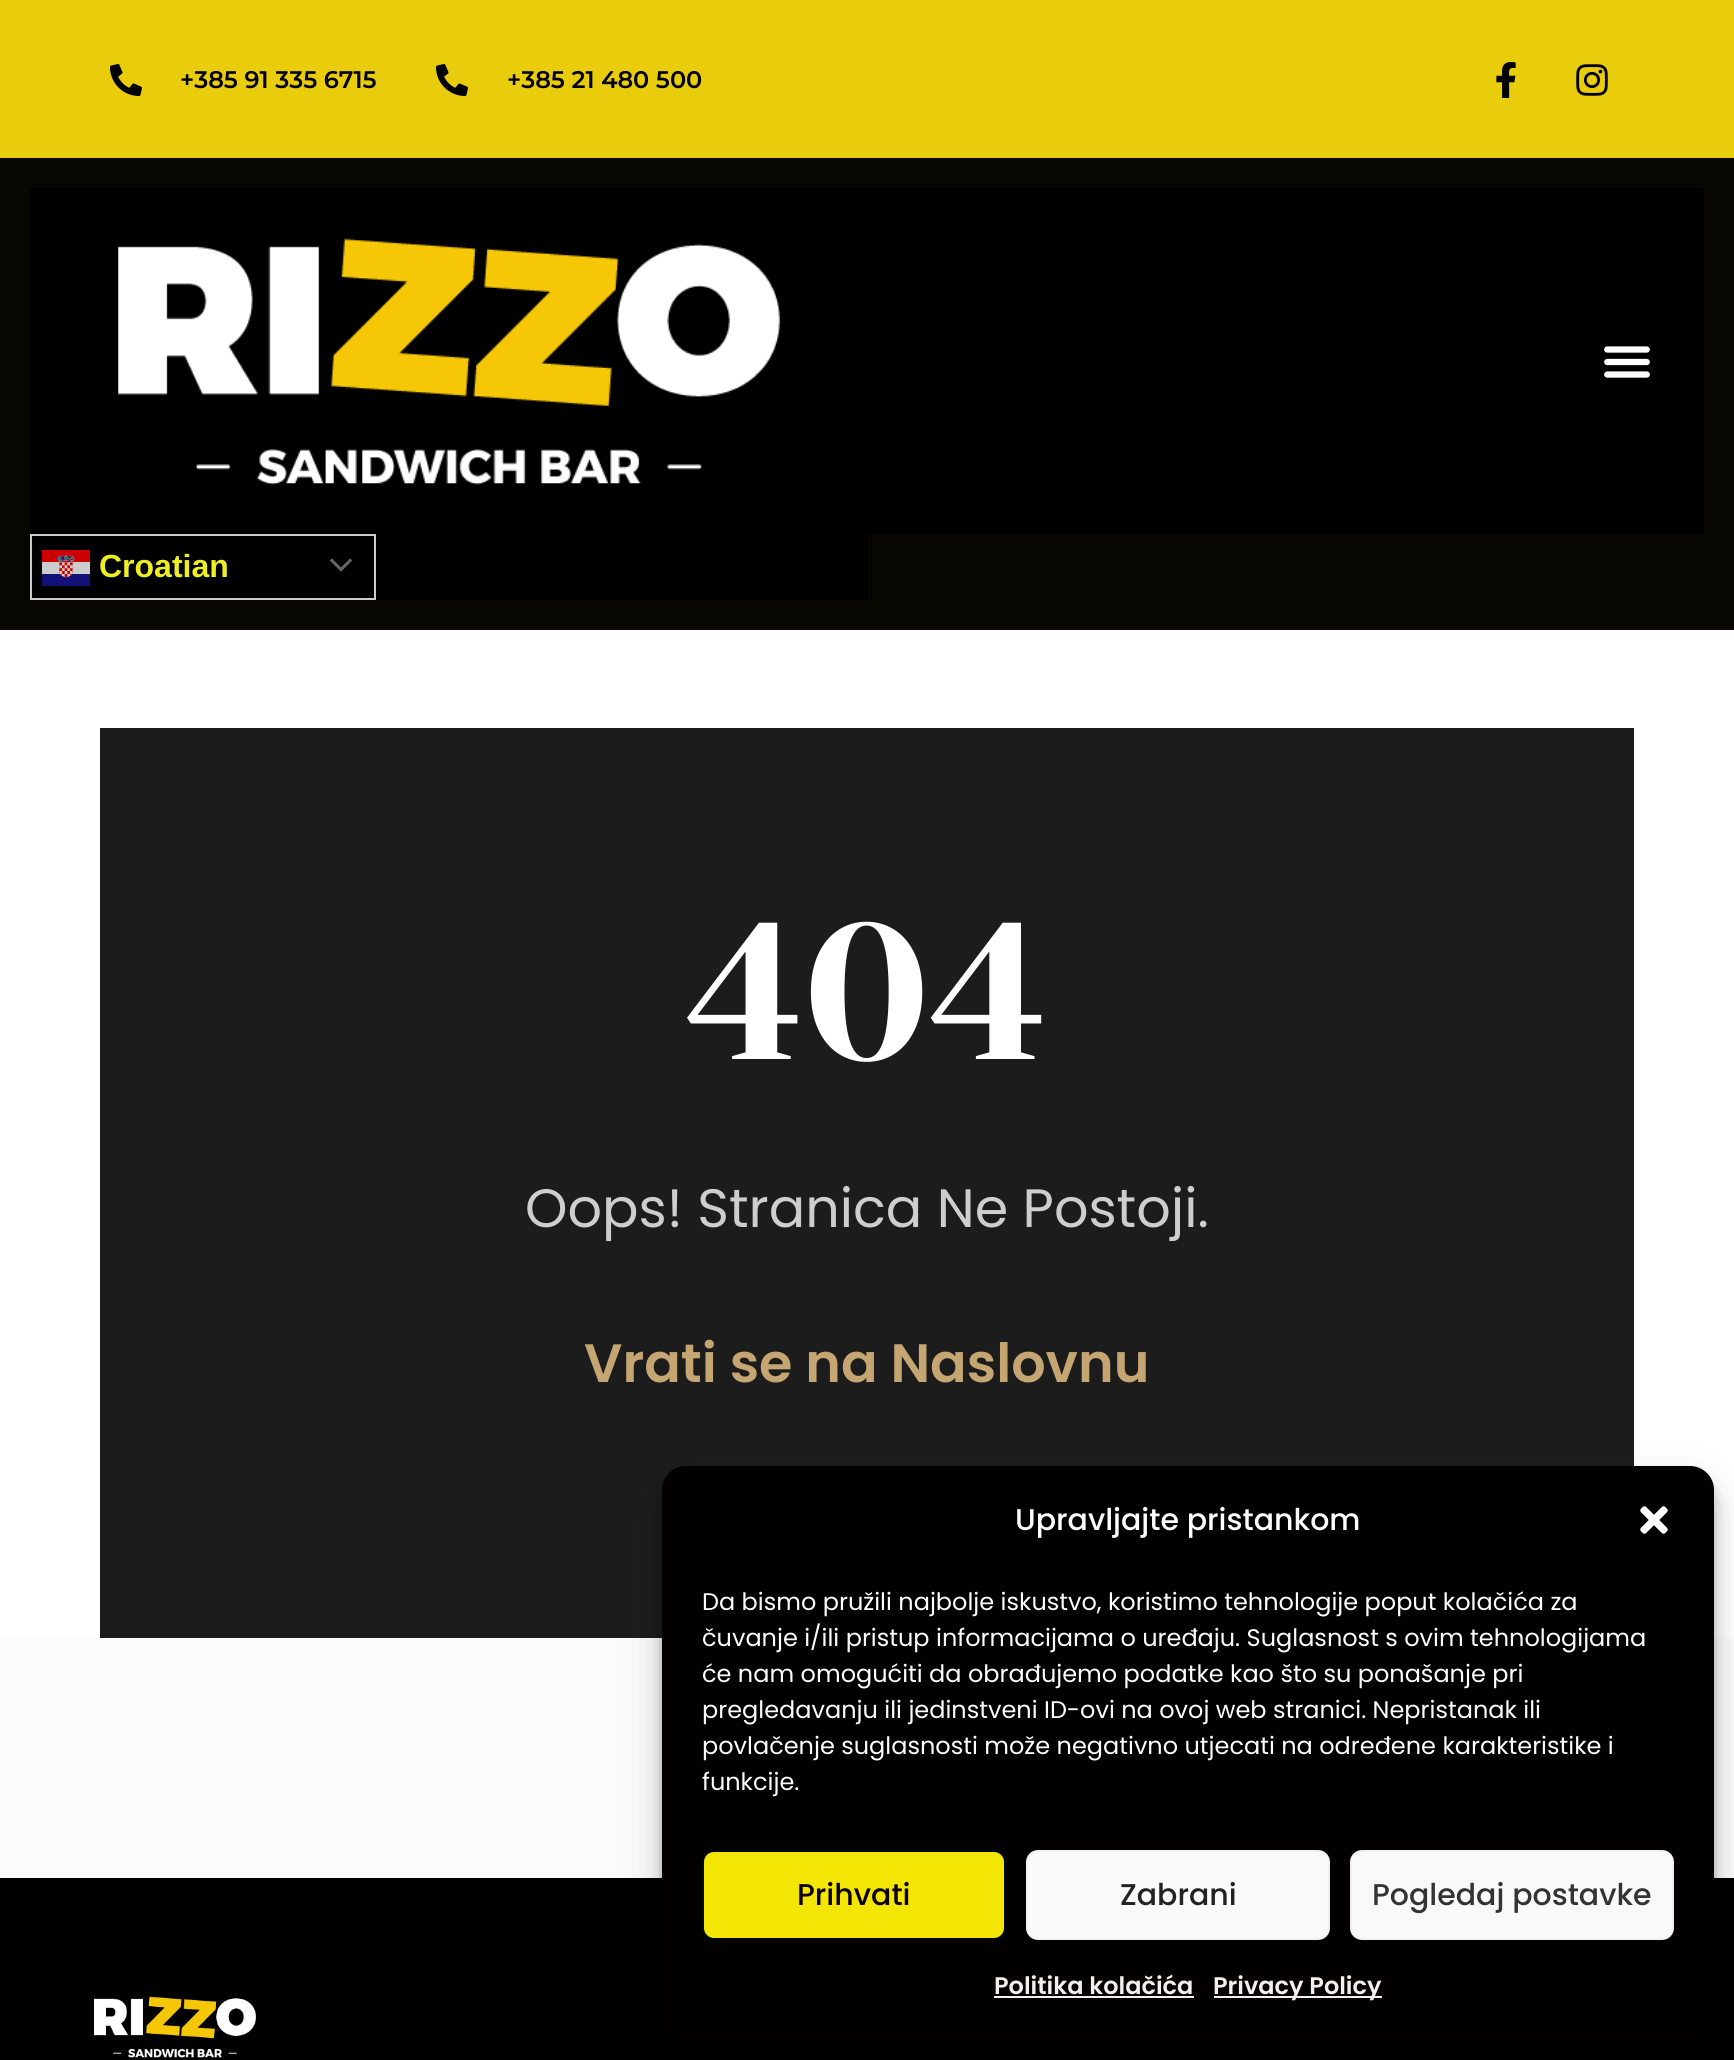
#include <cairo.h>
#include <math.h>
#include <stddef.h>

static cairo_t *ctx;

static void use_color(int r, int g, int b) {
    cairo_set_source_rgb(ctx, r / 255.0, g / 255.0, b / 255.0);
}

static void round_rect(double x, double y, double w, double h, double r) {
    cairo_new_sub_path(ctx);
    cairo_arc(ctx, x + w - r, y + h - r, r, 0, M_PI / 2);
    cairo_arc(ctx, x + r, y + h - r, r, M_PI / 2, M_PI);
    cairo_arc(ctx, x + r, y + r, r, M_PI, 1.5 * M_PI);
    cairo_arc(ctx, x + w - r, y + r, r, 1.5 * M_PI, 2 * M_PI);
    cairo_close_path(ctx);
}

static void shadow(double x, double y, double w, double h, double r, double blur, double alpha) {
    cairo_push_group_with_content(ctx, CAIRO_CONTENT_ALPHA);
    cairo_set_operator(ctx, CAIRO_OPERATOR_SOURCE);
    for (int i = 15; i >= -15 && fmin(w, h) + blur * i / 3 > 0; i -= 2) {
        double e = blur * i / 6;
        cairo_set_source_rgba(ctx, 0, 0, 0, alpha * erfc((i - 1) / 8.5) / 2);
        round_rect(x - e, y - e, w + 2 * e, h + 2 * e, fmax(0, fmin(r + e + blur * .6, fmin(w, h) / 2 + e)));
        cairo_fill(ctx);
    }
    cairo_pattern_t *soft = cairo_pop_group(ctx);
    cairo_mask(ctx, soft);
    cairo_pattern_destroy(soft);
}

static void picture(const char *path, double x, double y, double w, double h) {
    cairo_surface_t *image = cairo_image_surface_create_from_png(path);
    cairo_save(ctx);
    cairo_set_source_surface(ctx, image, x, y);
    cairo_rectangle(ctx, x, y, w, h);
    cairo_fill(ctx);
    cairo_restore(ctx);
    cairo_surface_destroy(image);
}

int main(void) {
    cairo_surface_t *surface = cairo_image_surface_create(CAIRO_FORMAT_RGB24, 1734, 2060);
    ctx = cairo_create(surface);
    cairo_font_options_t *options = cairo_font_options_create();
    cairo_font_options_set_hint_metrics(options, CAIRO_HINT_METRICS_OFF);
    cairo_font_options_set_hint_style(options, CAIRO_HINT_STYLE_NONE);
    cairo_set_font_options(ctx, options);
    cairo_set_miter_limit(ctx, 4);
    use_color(251, 251, 251);
    cairo_paint(ctx);
    use_color(233, 205, 13);
    cairo_rectangle(ctx, 0, 0, 1734, 158);
    cairo_fill(ctx);
    use_color(7, 6, 1);
    cairo_rectangle(ctx, 0, 158, 1734, 470);
    cairo_fill(ctx);
    picture("img1.png", 110, 64, 32, 32);
    cairo_select_font_face(ctx, "Montserrat SemiBold", CAIRO_FONT_SLANT_NORMAL, CAIRO_FONT_WEIGHT_NORMAL);
    cairo_set_font_size(ctx, 24);
    use_color(0, 0, 0);
    cairo_move_to(ctx, 180, 88);
    cairo_show_text(ctx, "+385 91 335 6715");
    picture("img1.png", 436, 64, 32, 32);
    cairo_move_to(ctx, 507, 88);
    cairo_show_text(ctx, "+385 21 480 500");
    picture("img2.png", 1496, 62, 20, 36);
    picture("img3.png", 1576, 64, 32, 32);
    cairo_rectangle(ctx, 30, 188, 1674, 346);
    cairo_fill(ctx);
    picture("img4.png", 118, 238, 663, 247);
    picture("img5.png", 1604, 346, 46, 32);
    cairo_rectangle(ctx, 32, 534, 836, 66);
    cairo_fill(ctx);
    cairo_rectangle(ctx, 31, 535, 344, 64);
    use_color(204, 204, 204);
    cairo_stroke(ctx);
    picture("img6.png", 42, 550, 48, 36);
    cairo_select_font_face(ctx, "Liberation Sans", CAIRO_FONT_SLANT_NORMAL, CAIRO_FONT_WEIGHT_BOLD);
    cairo_set_font_size(ctx, 32);
    use_color(238, 238, 34);
    cairo_move_to(ctx, 99, 577);
    cairo_show_text(ctx, "Croatian");
    picture("img7.png", 330, 558, 22, 14);
    use_color(28, 28, 28);
    cairo_rectangle(ctx, 100, 728, 1534, 910);
    cairo_fill(ctx);
    use_color(255, 255, 255);
    cairo_rectangle(ctx, 100, 630, 1534, 98);
    cairo_fill(ctx);
    use_color(8, 8, 8);
    cairo_rectangle(ctx, 0, 628, 1734, 2);
    cairo_fill(ctx);
    use_color(255, 255, 255);
    cairo_rectangle(ctx, 1634, 630, 100, 1008);
    cairo_fill(ctx);
    cairo_rectangle(ctx, 0, 630, 100, 1008);
    cairo_fill(ctx);
    cairo_select_font_face(ctx, "Yeseva One", CAIRO_FONT_SLANT_NORMAL, CAIRO_FONT_WEIGHT_NORMAL);
    cairo_set_font_size(ctx, 192);
    cairo_move_to(ctx, 687, 1059);
    cairo_show_text(ctx, "404");
    cairo_select_font_face(ctx, "Poppins", CAIRO_FONT_SLANT_NORMAL, CAIRO_FONT_WEIGHT_NORMAL);
    cairo_set_font_size(ctx, 54);
    use_color(206, 206, 206);
    cairo_move_to(ctx, 525, 1227);
    cairo_show_text(ctx, "Oops! Stranica Ne Postoji.");
    cairo_select_font_face(ctx, "Poppins SemiBold", CAIRO_FONT_SLANT_NORMAL, CAIRO_FONT_WEIGHT_NORMAL);
    use_color(197, 165, 114);
    cairo_move_to(ctx, 584, 1382);
    cairo_show_text(ctx, "Vrati se na Naslovnu");
    use_color(0, 0, 0);
    cairo_rectangle(ctx, 0, 1878, 1734, 182);
    cairo_fill(ctx);
    use_color(0, 0, 0);
    shadow(662, 1478, 1052, 574, 24, 6, 0.23);
    shadow(662, 1486, 1052, 574, 24, 20, 0.19);
    use_color(2, 0, 0);
    round_rect(662, 1466, 1052, 574, 24);
    cairo_fill(ctx);
    cairo_select_font_face(ctx, "Poppins Medium", CAIRO_FONT_SLANT_NORMAL, CAIRO_FONT_WEIGHT_NORMAL);
    cairo_set_font_size(ctx, 30);
    use_color(255, 255, 255);
    cairo_move_to(ctx, 1015, 1530);
    cairo_show_text(ctx, "Upravljajte pristankom");
    picture("img8.png", 1640, 1506, 28, 28);
    cairo_select_font_face(ctx, "Poppins", CAIRO_FONT_SLANT_NORMAL, CAIRO_FONT_WEIGHT_NORMAL);
    cairo_set_font_size(ctx, 24);
    cairo_move_to(ctx, 702, 1610);
    cairo_show_text(ctx, "Da bismo pružili najbolje iskustvo, koristimo tehnologije poput kolačića za");
    cairo_move_to(ctx, 702, 1646);
    cairo_show_text(ctx, "čuvanje i/ili pristup informacijama o uređaju. Suglasnost s ovim tehnologijama");
    cairo_move_to(ctx, 702, 1682);
    cairo_show_text(ctx, "će nam omogućiti da obrađujemo podatke kao što su ponašanje pri");
    cairo_move_to(ctx, 702, 1718);
    cairo_show_text(ctx, "pregledavanju ili jedinstveni ID-ovi na ovoj web stranici. Nepristanak ili");
    cairo_move_to(ctx, 702, 1754);
    cairo_show_text(ctx, "povlačenje suglasnosti može negativno utjecati na određene karakteristike i");
    cairo_move_to(ctx, 702, 1790);
    cairo_show_text(ctx, "funkcije.");
    use_color(243, 230, 5);
    round_rect(703, 1851, 302, 88, 11);
    cairo_fill_preserve(ctx);
    use_color(0, 7, 14);
    cairo_stroke(ctx);
    cairo_select_font_face(ctx, "Poppins Medium", CAIRO_FONT_SLANT_NORMAL, CAIRO_FONT_WEIGHT_NORMAL);
    cairo_set_font_size(ctx, 30);
    use_color(10, 0, 0);
    cairo_move_to(ctx, 797, 1905);
    cairo_show_text(ctx, "Prihvati");
    use_color(249, 249, 249);
    round_rect(1027, 1851, 302, 88, 11);
    cairo_fill_preserve(ctx);
    use_color(242, 242, 242);
    cairo_stroke(ctx);
    use_color(34, 34, 34);
    cairo_move_to(ctx, 1120, 1905);
    cairo_show_text(ctx, "Zabrani");
    use_color(249, 249, 249);
    round_rect(1351, 1851, 322, 88, 11);
    cairo_fill_preserve(ctx);
    use_color(242, 242, 242);
    cairo_stroke(ctx);
    use_color(51, 51, 51);
    cairo_move_to(ctx, 1372, 1905);
    cairo_show_text(ctx, "Pogledaj postavke");
    cairo_select_font_face(ctx, "Poppins SemiBold", CAIRO_FONT_SLANT_NORMAL, CAIRO_FONT_WEIGHT_NORMAL);
    cairo_set_font_size(ctx, 24);
    use_color(245, 239, 239);
    cairo_move_to(ctx, 994, 1994);
    cairo_show_text(ctx, "Politika kolačića");
    cairo_rectangle(ctx, 994, 1996, 200, 2);
    cairo_fill(ctx);
    cairo_rectangle(ctx, 1214, 1996, 168, 2);
    cairo_fill(ctx);
    cairo_move_to(ctx, 1213, 1994);
    cairo_show_text(ctx, "Privacy Policy");
    picture("img9.png", 94, 1996, 162, 62);
    cairo_surface_write_to_png(surface, "result.png");
    cairo_font_options_destroy(options);
    cairo_destroy(ctx);
    cairo_surface_destroy(surface);
    return 0;
}
